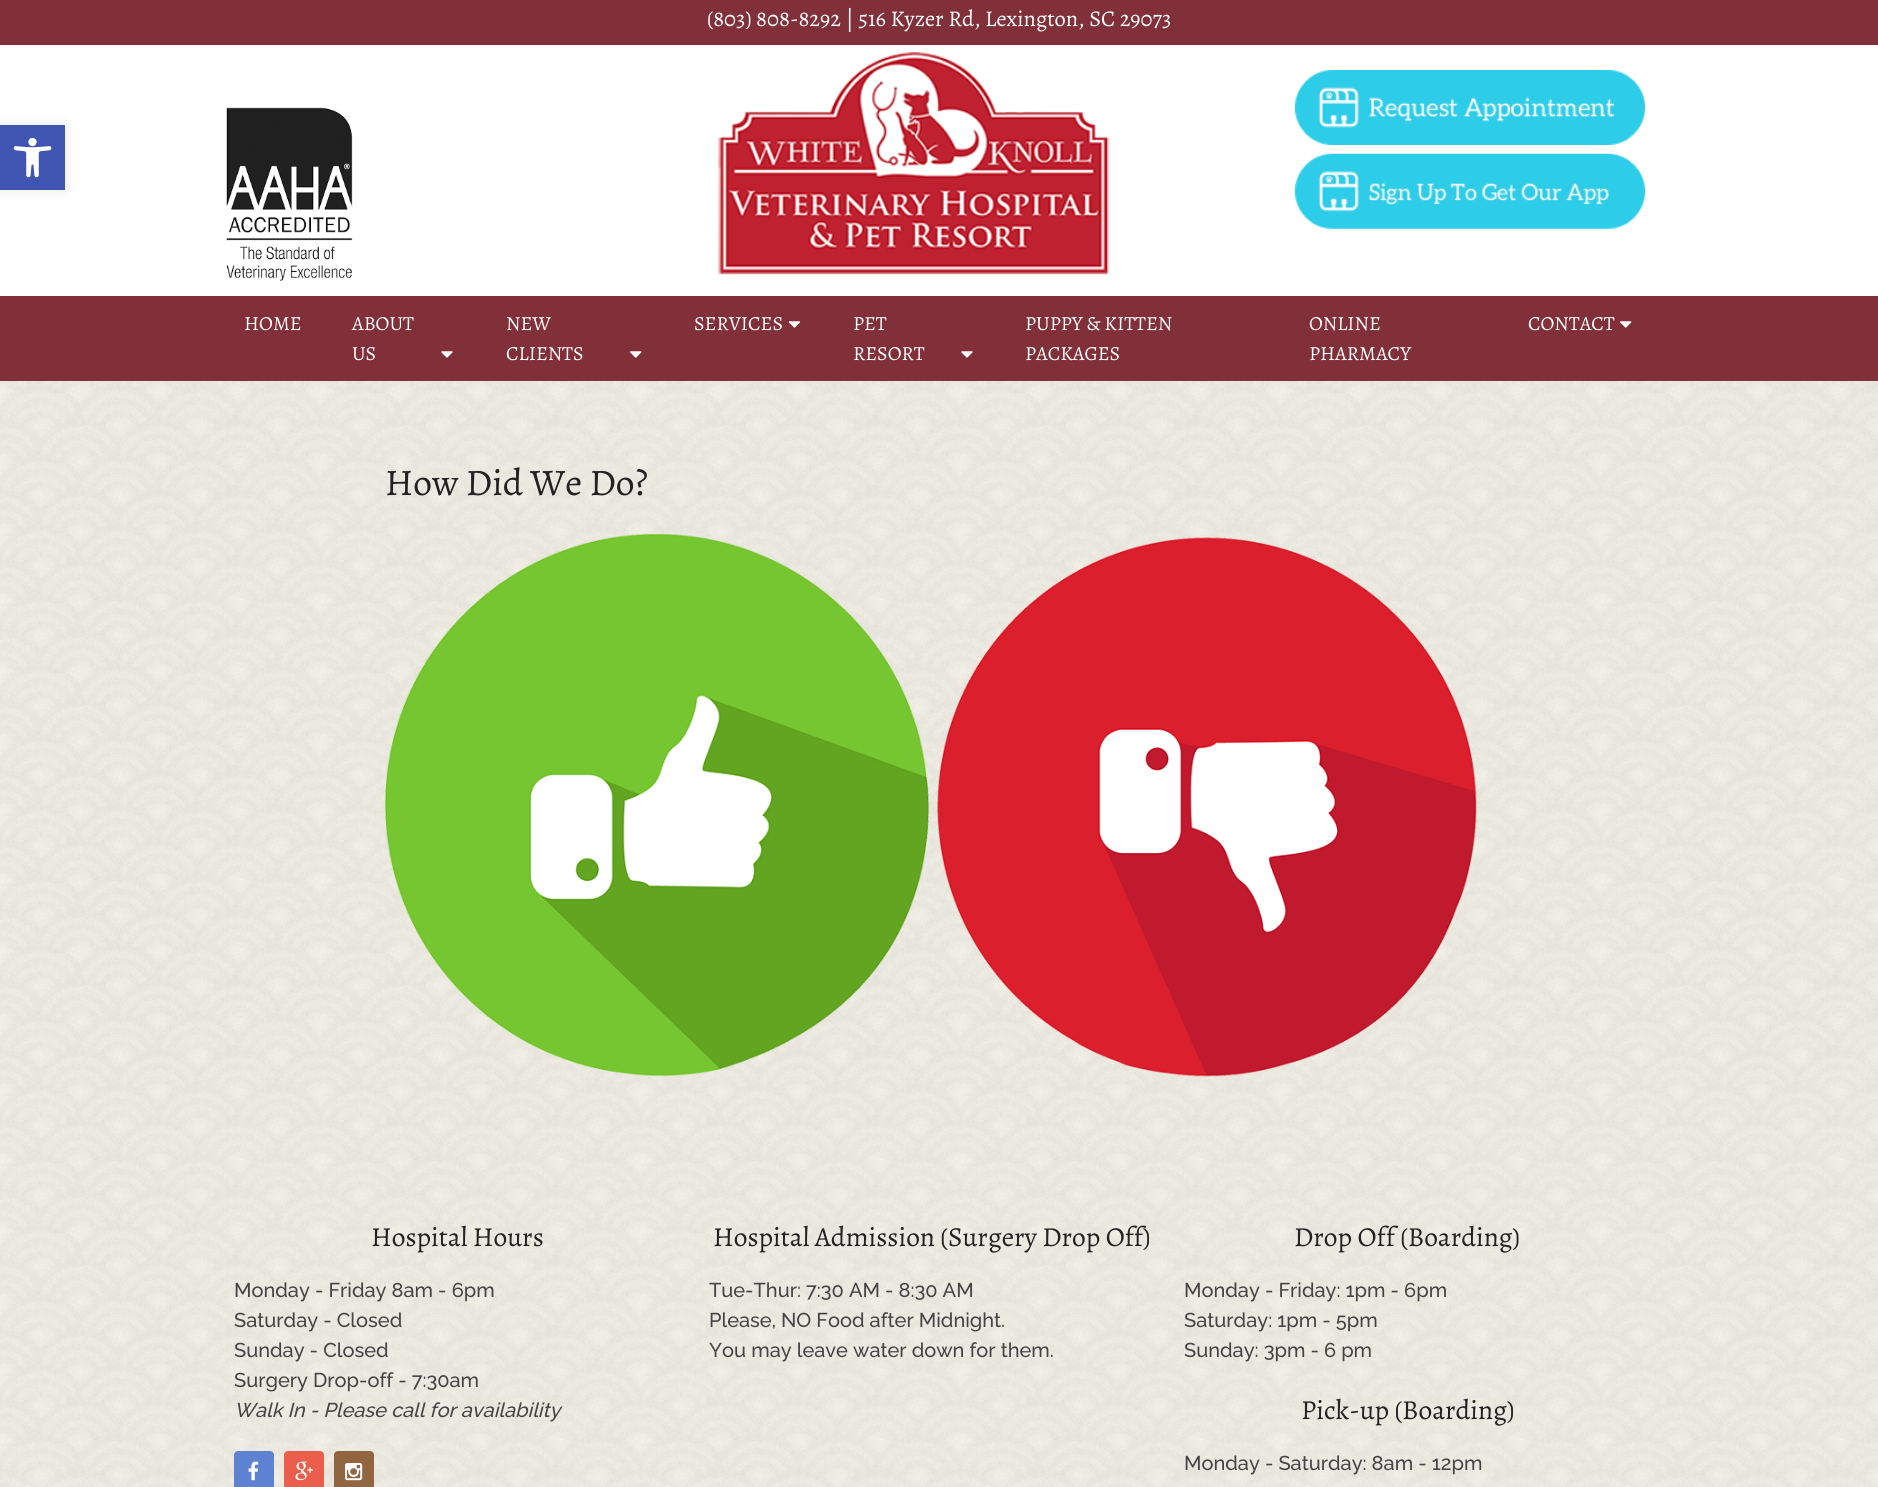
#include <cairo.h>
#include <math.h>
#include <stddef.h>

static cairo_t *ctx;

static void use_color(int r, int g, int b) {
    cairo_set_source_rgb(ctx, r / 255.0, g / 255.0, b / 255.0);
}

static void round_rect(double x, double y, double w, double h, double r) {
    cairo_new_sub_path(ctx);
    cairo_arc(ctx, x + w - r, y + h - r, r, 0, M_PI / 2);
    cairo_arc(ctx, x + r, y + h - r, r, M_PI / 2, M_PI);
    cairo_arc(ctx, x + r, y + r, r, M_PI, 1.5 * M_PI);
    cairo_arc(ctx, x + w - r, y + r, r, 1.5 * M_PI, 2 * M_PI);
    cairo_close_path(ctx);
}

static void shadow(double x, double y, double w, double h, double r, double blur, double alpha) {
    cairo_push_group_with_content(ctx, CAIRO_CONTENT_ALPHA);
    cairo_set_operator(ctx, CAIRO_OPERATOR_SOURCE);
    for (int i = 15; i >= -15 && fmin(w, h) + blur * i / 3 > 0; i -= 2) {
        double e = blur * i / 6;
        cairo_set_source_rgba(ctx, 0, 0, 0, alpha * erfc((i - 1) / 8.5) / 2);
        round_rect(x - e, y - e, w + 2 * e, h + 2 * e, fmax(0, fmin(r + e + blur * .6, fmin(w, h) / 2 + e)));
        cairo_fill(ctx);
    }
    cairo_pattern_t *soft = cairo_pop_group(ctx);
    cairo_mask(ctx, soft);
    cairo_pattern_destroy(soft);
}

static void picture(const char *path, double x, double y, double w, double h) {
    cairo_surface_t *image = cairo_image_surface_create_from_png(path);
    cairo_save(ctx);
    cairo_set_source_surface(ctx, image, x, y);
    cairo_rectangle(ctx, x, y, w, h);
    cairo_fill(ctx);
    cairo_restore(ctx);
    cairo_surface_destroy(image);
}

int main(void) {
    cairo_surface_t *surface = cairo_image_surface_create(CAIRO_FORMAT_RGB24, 1878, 1487);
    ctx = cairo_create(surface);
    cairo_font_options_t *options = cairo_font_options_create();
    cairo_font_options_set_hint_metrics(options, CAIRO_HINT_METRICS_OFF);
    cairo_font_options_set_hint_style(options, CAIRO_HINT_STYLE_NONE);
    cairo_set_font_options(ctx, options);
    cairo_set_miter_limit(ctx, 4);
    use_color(255, 255, 255);
    cairo_paint(ctx);
    picture("img1.png", 0, 381, 1878, 1106);
    use_color(0, 0, 0);
    shadow(0, 125, 65, 65, 0, 6, 0.1);
    use_color(64, 84, 178);
    cairo_rectangle(ctx, 0, 125, 65, 65);
    cairo_fill(ctx);
    picture("img2.png", 13, 138, 39, 40);
    use_color(129, 47, 56);
    cairo_rectangle(ctx, 0, 0, 1878, 45);
    cairo_fill(ctx);
    cairo_select_font_face(ctx, "Alegreya", CAIRO_FONT_SLANT_NORMAL, CAIRO_FONT_WEIGHT_NORMAL);
    cairo_set_font_size(ctx, 22.5);
    use_color(255, 255, 255);
    cairo_move_to(ctx, 707, 26);
    cairo_show_text(ctx, "(803) 808-8292 | 516 Kyzer Rd, Lexington, SC 29073");
    picture("img3.png", 226, 107, 127, 174);
    picture("img4.png", 718, 51, 392, 224);
    picture("img5.png", 1295, 70, 350, 75);
    picture("img6.png", 1295, 153, 350, 76);
    use_color(129, 47, 56);
    cairo_rectangle(ctx, 0, 296, 1878, 85);
    cairo_fill(ctx);
    cairo_set_font_size(ctx, 20);
    use_color(255, 255, 255);
    cairo_move_to(ctx, 244, 330);
    cairo_show_text(ctx, "HOME");
    cairo_move_to(ctx, 352, 330);
    cairo_show_text(ctx, "ABOUT");
    cairo_move_to(ctx, 352, 360);
    cairo_show_text(ctx, "US");
    picture("img7.png", 441, 351, 12, 7);
    cairo_move_to(ctx, 506, 330);
    cairo_show_text(ctx, "NEW");
    cairo_move_to(ctx, 506, 360);
    cairo_show_text(ctx, "CLIENTS");
    picture("img8.png", 630, 351, 12, 7);
    cairo_move_to(ctx, 694, 330);
    cairo_show_text(ctx, "SERVICES");
    picture("img9.png", 788, 321, 13, 7);
    cairo_move_to(ctx, 853, 330);
    cairo_show_text(ctx, "PET");
    cairo_move_to(ctx, 853, 360);
    cairo_show_text(ctx, "RESORT");
    picture("img7.png", 961, 351, 12, 7);
    cairo_move_to(ctx, 1025, 330);
    cairo_show_text(ctx, "PUPPY & KITTEN");
    cairo_move_to(ctx, 1025, 360);
    cairo_show_text(ctx, "PACKAGES");
    cairo_move_to(ctx, 1309, 330);
    cairo_show_text(ctx, "ONLINE");
    cairo_move_to(ctx, 1309, 360);
    cairo_show_text(ctx, "PHARMACY");
    cairo_move_to(ctx, 1528, 330);
    cairo_show_text(ctx, "CONTACT");
    picture("img8.png", 1620, 321, 12, 7);
    cairo_set_font_size(ctx, 37.5);
    use_color(34, 34, 34);
    cairo_move_to(ctx, 385, 495);
    cairo_show_text(ctx, "How Did We Do?");
    picture("img10.png", 385, 533, 544, 544);
    picture("img11.png", 937, 537, 540, 540);
    cairo_set_font_size(ctx, 27.5);
    cairo_move_to(ctx, 371, 1246);
    cairo_show_text(ctx, "Hospital Hours");
    cairo_select_font_face(ctx, "Raleway Thin", CAIRO_FONT_SLANT_NORMAL, CAIRO_FONT_WEIGHT_NORMAL);
    cairo_set_font_size(ctx, 20);
    use_color(68, 68, 68);
    cairo_move_to(ctx, 234, 1297);
    cairo_show_text(ctx, "Monday - Friday 8am - 6pm");
    cairo_move_to(ctx, 234, 1327);
    cairo_show_text(ctx, "Saturday - Closed");
    cairo_move_to(ctx, 234, 1357);
    cairo_show_text(ctx, "Sunday - Closed");
    cairo_move_to(ctx, 234, 1387);
    cairo_show_text(ctx, "Surgery Drop-off - 7:30am");
    cairo_select_font_face(ctx, "Raleway Thin", CAIRO_FONT_SLANT_ITALIC, CAIRO_FONT_WEIGHT_NORMAL);
    cairo_move_to(ctx, 234, 1417);
    cairo_show_text(ctx, "Walk In - Please call for availability");
    use_color(93, 130, 209);
    round_rect(234, 1451, 40, 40, 4);
    cairo_fill(ctx);
    picture("img12.png", 248, 1461, 11, 20);
    use_color(235, 94, 76);
    round_rect(284, 1451, 40, 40, 4);
    cairo_fill(ctx);
    picture("img13.png", 295, 1461, 18, 20);
    use_color(145, 101, 63);
    round_rect(334, 1451, 40, 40, 4);
    cairo_fill(ctx);
    picture("img14.png", 345, 1463, 18, 18);
    cairo_select_font_face(ctx, "Alegreya", CAIRO_FONT_SLANT_NORMAL, CAIRO_FONT_WEIGHT_NORMAL);
    cairo_set_font_size(ctx, 27.5);
    use_color(34, 34, 34);
    cairo_move_to(ctx, 713, 1246);
    cairo_show_text(ctx, "Hospital Admission (Surgery Drop Off)");
    cairo_select_font_face(ctx, "Raleway Thin", CAIRO_FONT_SLANT_NORMAL, CAIRO_FONT_WEIGHT_NORMAL);
    cairo_set_font_size(ctx, 20);
    use_color(68, 68, 68);
    cairo_move_to(ctx, 709, 1297);
    cairo_show_text(ctx, "Tue-Thur: 7:30 AM - 8:30 AM");
    cairo_move_to(ctx, 709, 1327);
    cairo_show_text(ctx, "Please, NO Food after Midnight.");
    cairo_move_to(ctx, 709, 1357);
    cairo_show_text(ctx, "You may leave water down for them.");
    cairo_select_font_face(ctx, "Alegreya", CAIRO_FONT_SLANT_NORMAL, CAIRO_FONT_WEIGHT_NORMAL);
    cairo_set_font_size(ctx, 27.5);
    use_color(34, 34, 34);
    cairo_move_to(ctx, 1294, 1246);
    cairo_show_text(ctx, "Drop Off (Boarding)");
    cairo_select_font_face(ctx, "Raleway Thin", CAIRO_FONT_SLANT_NORMAL, CAIRO_FONT_WEIGHT_NORMAL);
    cairo_set_font_size(ctx, 20);
    use_color(68, 68, 68);
    cairo_move_to(ctx, 1184, 1297);
    cairo_show_text(ctx, "Monday - Friday: 1pm - 6pm");
    cairo_move_to(ctx, 1184, 1327);
    cairo_show_text(ctx, "Saturday: 1pm - 5pm");
    cairo_move_to(ctx, 1184, 1357);
    cairo_show_text(ctx, "Sunday: 3pm - 6 pm");
    cairo_select_font_face(ctx, "Alegreya", CAIRO_FONT_SLANT_NORMAL, CAIRO_FONT_WEIGHT_NORMAL);
    cairo_set_font_size(ctx, 27.5);
    use_color(34, 34, 34);
    cairo_move_to(ctx, 1301, 1419);
    cairo_show_text(ctx, "Pick-up (Boarding)");
    cairo_select_font_face(ctx, "Raleway Thin", CAIRO_FONT_SLANT_NORMAL, CAIRO_FONT_WEIGHT_NORMAL);
    cairo_set_font_size(ctx, 20);
    use_color(68, 68, 68);
    cairo_move_to(ctx, 1184, 1470);
    cairo_show_text(ctx, "Monday - Saturday: 8am - 12pm");
    cairo_surface_write_to_png(surface, "result.png");
    cairo_font_options_destroy(options);
    cairo_destroy(ctx);
    cairo_surface_destroy(surface);
    return 0;
}
